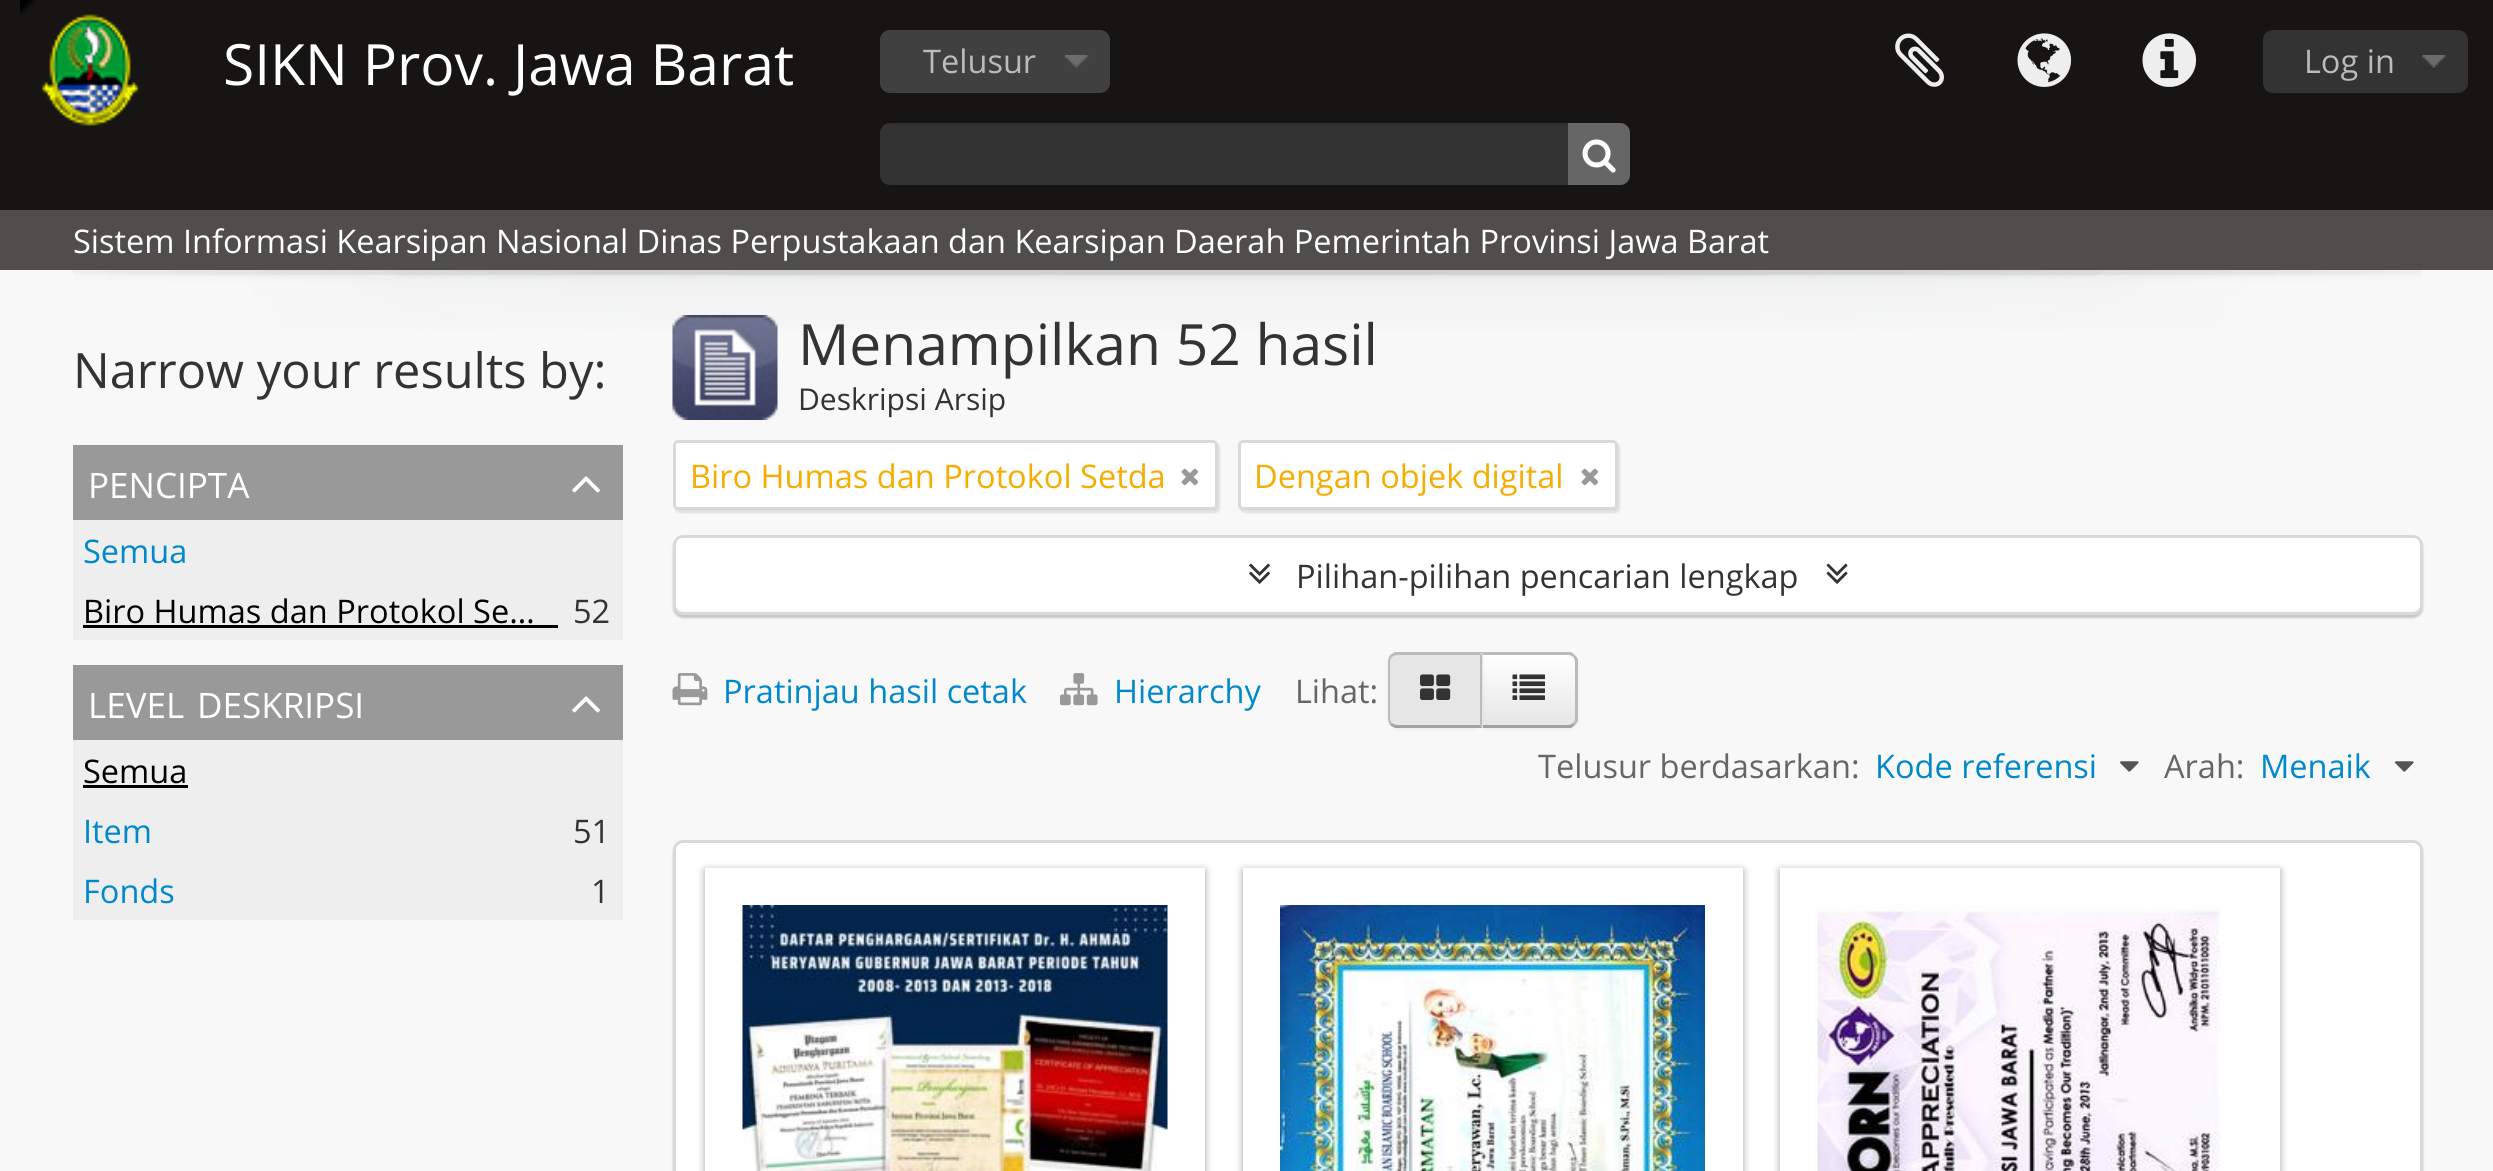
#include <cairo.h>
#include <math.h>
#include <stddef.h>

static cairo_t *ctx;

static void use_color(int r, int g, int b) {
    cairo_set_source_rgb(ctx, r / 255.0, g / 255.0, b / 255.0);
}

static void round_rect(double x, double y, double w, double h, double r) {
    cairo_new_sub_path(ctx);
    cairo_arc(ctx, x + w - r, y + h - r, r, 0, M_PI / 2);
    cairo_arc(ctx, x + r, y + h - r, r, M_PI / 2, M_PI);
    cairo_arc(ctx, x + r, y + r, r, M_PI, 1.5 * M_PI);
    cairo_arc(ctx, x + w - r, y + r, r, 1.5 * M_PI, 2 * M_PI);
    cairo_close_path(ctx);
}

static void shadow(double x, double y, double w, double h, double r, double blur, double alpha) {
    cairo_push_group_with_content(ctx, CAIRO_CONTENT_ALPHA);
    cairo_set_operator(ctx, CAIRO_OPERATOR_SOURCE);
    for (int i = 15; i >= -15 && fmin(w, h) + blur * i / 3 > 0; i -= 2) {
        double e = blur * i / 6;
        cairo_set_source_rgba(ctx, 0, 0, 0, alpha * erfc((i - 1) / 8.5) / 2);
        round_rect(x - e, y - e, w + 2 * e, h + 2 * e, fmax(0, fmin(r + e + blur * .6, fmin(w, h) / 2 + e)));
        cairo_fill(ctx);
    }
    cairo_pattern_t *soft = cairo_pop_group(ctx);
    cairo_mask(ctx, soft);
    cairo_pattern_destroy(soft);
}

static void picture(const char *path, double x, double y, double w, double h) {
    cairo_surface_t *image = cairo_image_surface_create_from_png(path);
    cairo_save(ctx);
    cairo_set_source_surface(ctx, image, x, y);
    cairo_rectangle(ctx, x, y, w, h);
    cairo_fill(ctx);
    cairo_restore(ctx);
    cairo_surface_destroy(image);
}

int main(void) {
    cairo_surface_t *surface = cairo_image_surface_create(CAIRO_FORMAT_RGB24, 2493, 1171);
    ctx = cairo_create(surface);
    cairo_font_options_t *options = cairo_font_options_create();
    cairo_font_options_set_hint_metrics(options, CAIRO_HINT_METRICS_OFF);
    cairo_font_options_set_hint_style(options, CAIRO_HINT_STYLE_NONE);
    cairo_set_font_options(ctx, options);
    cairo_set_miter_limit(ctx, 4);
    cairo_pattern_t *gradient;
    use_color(248, 248, 248);
    cairo_paint(ctx);
    use_color(22, 21, 20);
    cairo_rectangle(ctx, 0, 0, 2493, 210);
    cairo_fill(ctx);
    picture("img1.png", 20, 0, 119, 126);
    cairo_select_font_face(ctx, "Open Sans", CAIRO_FONT_SLANT_NORMAL, CAIRO_FONT_WEIGHT_NORMAL);
    cairo_set_font_size(ctx, 56.9);
    use_color(255, 255, 255);
    cairo_move_to(ctx, 223, 85);
    cairo_show_text(ctx, "SIKN Prov. Jawa Barat");
    use_color(64, 64, 64);
    round_rect(880, 30, 230, 63, 10);
    cairo_fill(ctx);
    picture("img2.png", 1065, 55, 24, 13);
    cairo_set_font_size(ctx, 32.5);
    use_color(187, 187, 187);
    cairo_move_to(ctx, 923, 73);
    cairo_show_text(ctx, "Telusur");
    use_color(51, 51, 51);
    round_rect(880, 123, 750, 62, 10);
    cairo_fill(ctx);
    cairo_set_source_rgba(ctx, 0, 0, 0, 0.07);
    cairo_new_path(ctx);
    cairo_move_to(ctx, 890, 125);
    cairo_line_to(ctx, 1620, 125);
    cairo_curve_to(ctx, 1626, 125, 1630, 129, 1630, 135);
    cairo_line_to(ctx, 1630, 133);
    cairo_curve_to(ctx, 1630, 127, 1626, 123, 1620, 123);
    cairo_line_to(ctx, 890, 123);
    cairo_curve_to(ctx, 884, 123, 880, 127, 880, 133);
    cairo_line_to(ctx, 880, 135);
    cairo_curve_to(ctx, 880, 129, 884, 125, 890, 125);
    cairo_close_path(ctx);
    cairo_fill(ctx);
    use_color(102, 102, 102);
    cairo_new_path(ctx);
    cairo_move_to(ctx, 1568, 123);
    cairo_line_to(ctx, 1620, 123);
    cairo_curve_to(ctx, 1625.5, 123, 1630, 127.5, 1630, 133);
    cairo_line_to(ctx, 1630, 175);
    cairo_curve_to(ctx, 1630, 180.5, 1625.5, 185, 1620, 185);
    cairo_line_to(ctx, 1568, 185);
    cairo_close_path(ctx);
    cairo_fill(ctx);
    picture("img3.png", 1582, 139, 34, 34);
    picture("img4.png", 1895, 33, 49, 54);
    picture("img5.png", 2017, 33, 55, 54);
    picture("img6.png", 2142, 33, 55, 54);
    use_color(51, 51, 51);
    round_rect(2263, 30, 205, 63, 10);
    cairo_fill(ctx);
    picture("img7.png", 2422, 55, 24, 13);
    use_color(187, 187, 187);
    cairo_move_to(ctx, 2304, 73);
    cairo_show_text(ctx, "Log in");
    use_color(79, 78, 77);
    cairo_rectangle(ctx, 0, 210, 2493, 60);
    cairo_fill(ctx);
    use_color(255, 255, 255);
    cairo_move_to(ctx, 73, 253);
    cairo_show_text(ctx, "Sistem Informasi Kearsipan Nasional Dinas Perpustakaan dan Kearsipan Daerah Pemerintah Provinsi Jawa Barat");
    picture("img8.png", 73, 270, 2349, 59);
    cairo_set_font_size(ctx, 48.75);
    use_color(51, 51, 51);
    cairo_move_to(ctx, 73, 388);
    cairo_show_text(ctx, "Narrow your results by:");
    use_color(153, 153, 153);
    cairo_rectangle(ctx, 73, 445, 550, 75);
    cairo_fill(ctx);
    cairo_set_font_size(ctx, 35);
    use_color(255, 255, 255);
    cairo_move_to(ctx, 88, 498);
    cairo_show_text(ctx, "PENCIPTA");
    picture("img9.png", 572, 476, 28, 17);
    use_color(238, 238, 238);
    cairo_rectangle(ctx, 73, 520, 550, 120);
    cairo_fill(ctx);
    cairo_set_font_size(ctx, 32.5);
    use_color(0, 136, 204);
    cairo_move_to(ctx, 83, 563);
    cairo_show_text(ctx, "Semua");
    use_color(0, 0, 0);
    cairo_move_to(ctx, 83, 623);
    cairo_show_text(ctx, "Biro Humas dan Protokol Se…");
    cairo_rectangle(ctx, 83, 625, 475, 3);
    cairo_fill(ctx);
    use_color(51, 51, 51);
    cairo_move_to(ctx, 573, 623);
    cairo_show_text(ctx, "52");
    use_color(153, 153, 153);
    cairo_rectangle(ctx, 73, 665, 550, 75);
    cairo_fill(ctx);
    cairo_set_font_size(ctx, 35);
    use_color(255, 255, 255);
    cairo_move_to(ctx, 88, 718);
    cairo_show_text(ctx, "LEVEL");
    cairo_move_to(ctx, 197, 718);
    cairo_show_text(ctx, "DESKRIPSI");
    picture("img9.png", 572, 696, 28, 17);
    use_color(238, 238, 238);
    cairo_rectangle(ctx, 73, 740, 550, 180);
    cairo_fill(ctx);
    cairo_set_font_size(ctx, 32.5);
    use_color(0, 0, 0);
    cairo_move_to(ctx, 83, 783);
    cairo_show_text(ctx, "Semua");
    cairo_rectangle(ctx, 83, 785, 105, 3);
    cairo_fill(ctx);
    use_color(0, 136, 204);
    cairo_move_to(ctx, 83, 843);
    cairo_show_text(ctx, "Item");
    use_color(51, 51, 51);
    cairo_move_to(ctx, 573, 843);
    cairo_show_text(ctx, "51");
    use_color(0, 136, 204);
    cairo_move_to(ctx, 83, 903);
    cairo_show_text(ctx, "Fonds");
    use_color(51, 51, 51);
    cairo_move_to(ctx, 591, 903);
    cairo_show_text(ctx, "1");
    picture("img10.png", 672, 315, 106, 105);
    cairo_set_font_size(ctx, 56.9);
    cairo_move_to(ctx, 798, 365);
    cairo_show_text(ctx, "Menampilkan 52 hasil");
    cairo_set_font_size(ctx, 30);
    cairo_move_to(ctx, 798, 410);
    cairo_show_text(ctx, "Deskripsi Arsip");
    use_color(0, 0, 0);
    shadow(675, 443, 545, 70, 5, 1, 0.1);
    use_color(255, 255, 255);
    round_rect(674.5, 441.5, 542, 67, 3.5);
    cairo_fill_preserve(ctx);
    use_color(217, 217, 217);
    cairo_set_line_width(ctx, 3);
    cairo_stroke(ctx);
    cairo_set_font_size(ctx, 32.5);
    use_color(246, 172, 0);
    cairo_move_to(ctx, 690, 488);
    cairo_show_text(ctx, "Biro Humas dan Protokol Setda");
    picture("img11.png", 1181, 468, 17, 18);
    use_color(0, 0, 0);
    shadow(1240, 443, 380, 70, 5, 1, 0.1);
    use_color(255, 255, 255);
    round_rect(1239.5, 441.5, 377, 67, 3.5);
    cairo_fill_preserve(ctx);
    use_color(217, 217, 217);
    cairo_stroke(ctx);
    use_color(246, 172, 0);
    cairo_move_to(ctx, 1254, 488);
    cairo_show_text(ctx, "Dengan objek digital");
    picture("img11.png", 1581, 468, 17, 18);
    use_color(0, 0, 0);
    shadow(673, 538, 1750, 80, 10, 1, 0.2);
    use_color(255, 255, 255);
    round_rect(674.5, 536.5, 1747, 77, 8.5);
    cairo_fill_preserve(ctx);
    use_color(217, 217, 217);
    cairo_stroke(ctx);
    picture("img12.png", 1249, 563, 21, 21);
    use_color(51, 51, 51);
    cairo_move_to(ctx, 1296, 588);
    cairo_show_text(ctx, "Pilihan-pilihan pencarian lengkap");
    picture("img13.png", 1826, 563, 22, 21);
    picture("img14.png", 672, 673, 36, 33);
    use_color(0, 136, 204);
    cairo_move_to(ctx, 723, 703);
    cairo_show_text(ctx, "Pratinjau hasil cetak");
    picture("img15.png", 1060, 673, 38, 33);
    cairo_move_to(ctx, 1114, 703);
    cairo_show_text(ctx, "Hierarchy");
    use_color(102, 102, 102);
    cairo_move_to(ctx, 1295, 703);
    cairo_show_text(ctx, "Lihat:");
    use_color(0, 0, 0);
    shadow(1480, 655, 98, 75, 10, 2.5, 0.05);
    use_color(245, 245, 245);
    cairo_new_path(ctx);
    cairo_move_to(ctx, 1480, 653);
    cairo_line_to(ctx, 1568, 653);
    cairo_curve_to(ctx, 1573.5, 653, 1578, 657.5, 1578, 663);
    cairo_line_to(ctx, 1578, 718);
    cairo_curve_to(ctx, 1578, 723.5, 1573.5, 728, 1568, 728);
    cairo_line_to(ctx, 1480, 728);
    cairo_close_path(ctx);
    cairo_fill(ctx);
    cairo_save(ctx);
    cairo_new_path(ctx);
    cairo_move_to(ctx, 1480, 653);
    cairo_line_to(ctx, 1568, 653);
    cairo_curve_to(ctx, 1573.5, 653, 1578, 657.5, 1578, 663);
    cairo_line_to(ctx, 1578, 718);
    cairo_curve_to(ctx, 1578, 723.5, 1573.5, 728, 1568, 728);
    cairo_line_to(ctx, 1480, 728);
    cairo_close_path(ctx);
    cairo_clip(ctx);
    gradient = cairo_pattern_create_linear(1529, 655, 1529, 725);
    cairo_pattern_add_color_stop_rgba(gradient, 0, 1, 1, 1, 1);
    cairo_pattern_add_color_stop_rgba(gradient, 1, 0.902, 0.902, 0.902, 1);
    cairo_set_source(ctx, gradient);
    cairo_pattern_destroy(gradient);
    cairo_rectangle(ctx, 1483, 655, 95, 70);
    cairo_fill(ctx);
    cairo_restore(ctx);
    use_color(187, 187, 187);
    cairo_new_path(ctx);
    cairo_move_to(ctx, 1480, 652);
    cairo_line_to(ctx, 1571, 652);
    cairo_line_to(ctx, 1575, 655);
    cairo_line_to(ctx, 1573, 657);
    cairo_curve_to(ctx, 1572, 656, 1570, 655, 1568, 655);
    cairo_line_to(ctx, 1482, 655);
    cairo_close_path(ctx);
    cairo_fill(ctx);
    cairo_new_path(ctx);
    cairo_move_to(ctx, 1578, 721);
    cairo_line_to(ctx, 1575, 725);
    cairo_line_to(ctx, 1573, 723);
    cairo_curve_to(ctx, 1574, 722, 1575, 720, 1575, 718);
    cairo_line_to(ctx, 1575, 662);
    cairo_curve_to(ctx, 1575, 660, 1574, 658, 1573, 657);
    cairo_line_to(ctx, 1575, 655);
    cairo_line_to(ctx, 1578, 659);
    cairo_close_path(ctx);
    cairo_fill(ctx);
    use_color(162, 162, 162);
    cairo_new_path(ctx);
    cairo_move_to(ctx, 1571, 728);
    cairo_line_to(ctx, 1480, 728);
    cairo_line_to(ctx, 1482, 725);
    cairo_line_to(ctx, 1568, 725);
    cairo_curve_to(ctx, 1570, 725, 1572, 724, 1573, 723);
    cairo_line_to(ctx, 1575, 725);
    cairo_close_path(ctx);
    cairo_fill(ctx);
    use_color(0, 0, 0);
    shadow(1388, 655, 95, 75, 10, 2.5, 0.05);
    use_color(230, 230, 230);
    cairo_new_path(ctx);
    cairo_move_to(ctx, 1398, 653);
    cairo_line_to(ctx, 1483, 653);
    cairo_line_to(ctx, 1483, 728);
    cairo_line_to(ctx, 1398, 728);
    cairo_curve_to(ctx, 1392.5, 728, 1388, 723.5, 1388, 718);
    cairo_line_to(ctx, 1388, 663);
    cairo_curve_to(ctx, 1388, 657.5, 1392.5, 653, 1398, 653);
    cairo_close_path(ctx);
    cairo_fill(ctx);
    use_color(187, 187, 187);
    cairo_new_path(ctx);
    cairo_move_to(ctx, 1398, 655);
    cairo_curve_to(ctx, 1395, 655, 1393, 656, 1392, 657);
    cairo_line_to(ctx, 1390, 655);
    cairo_curve_to(ctx, 1392, 654, 1393, 653, 1395, 652);
    cairo_line_to(ctx, 1482, 652);
    cairo_line_to(ctx, 1480, 655);
    cairo_close_path(ctx);
    cairo_fill(ctx);
    cairo_new_path(ctx);
    cairo_move_to(ctx, 1482, 653);
    cairo_line_to(ctx, 1482, 727);
    cairo_line_to(ctx, 1480, 725);
    cairo_line_to(ctx, 1480, 655);
    cairo_close_path(ctx);
    cairo_fill(ctx);
    use_color(162, 162, 162);
    cairo_new_path(ctx);
    cairo_move_to(ctx, 1395, 728);
    cairo_curve_to(ctx, 1393, 727, 1392, 726, 1390, 725);
    cairo_line_to(ctx, 1392, 723);
    cairo_curve_to(ctx, 1393, 724, 1395, 725, 1398, 725);
    cairo_line_to(ctx, 1480, 725);
    cairo_line_to(ctx, 1482, 728);
    cairo_close_path(ctx);
    cairo_fill(ctx);
    use_color(187, 187, 187);
    cairo_new_path(ctx);
    cairo_move_to(ctx, 1390, 725);
    cairo_curve_to(ctx, 1389, 723, 1388, 720, 1388, 718);
    cairo_line_to(ctx, 1388, 662);
    cairo_curve_to(ctx, 1388, 660, 1389, 657, 1390, 655);
    cairo_line_to(ctx, 1392, 657);
    cairo_curve_to(ctx, 1391, 658, 1390, 660, 1390, 662);
    cairo_line_to(ctx, 1390, 718);
    cairo_curve_to(ctx, 1390, 720, 1391, 722, 1392, 723);
    cairo_close_path(ctx);
    cairo_fill(ctx);
    picture("img16.png", 1420, 674, 31, 26);
    picture("img17.png", 1512, 674, 33, 26);
    use_color(102, 102, 102);
    cairo_move_to(ctx, 1538, 778);
    cairo_show_text(ctx, "Telusur berdasarkan:");
    use_color(0, 136, 204);
    cairo_move_to(ctx, 1875, 778);
    cairo_show_text(ctx, "Kode referensi");
    picture("img18.png", 2120, 761, 19, 11);
    use_color(102, 102, 102);
    cairo_move_to(ctx, 2164, 778);
    cairo_show_text(ctx, "Arah:");
    use_color(0, 136, 204);
    cairo_move_to(ctx, 2260, 778);
    cairo_show_text(ctx, "Menaik");
    picture("img18.png", 2395, 761, 19, 11);
    use_color(0, 0, 0);
    shadow(673, 843, 1750, 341, 10, 1, 0.2);
    use_color(255, 255, 255);
    round_rect(674.5, 841.5, 1747, 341, 8.5);
    cairo_fill_preserve(ctx);
    use_color(217, 217, 217);
    cairo_stroke(ctx);
    cairo_save(ctx);
    cairo_set_fill_rule(ctx, CAIRO_FILL_RULE_EVEN_ODD);
    cairo_new_path(ctx);
    cairo_move_to(ctx, 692, 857);
    cairo_line_to(ctx, 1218, 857);
    cairo_line_to(ctx, 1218, 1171);
    cairo_line_to(ctx, 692, 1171);
    cairo_close_path(ctx);
    cairo_move_to(ctx, 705, 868);
    cairo_line_to(ctx, 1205, 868);
    cairo_line_to(ctx, 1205, 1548);
    cairo_line_to(ctx, 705, 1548);
    cairo_close_path(ctx);
    cairo_clip(ctx);
    use_color(25, 25, 25);
    shadow(705, 870, 500, 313, 0, 4, 0.4);
    cairo_restore(ctx);
    picture("img19.png", 742, 905, 426, 266);
    use_color(25, 25, 25);
    shadow(1243, 870, 500, 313, 0, 4, 0.4);
    use_color(255, 255, 255);
    cairo_rectangle(ctx, 1243, 868, 500, 303);
    cairo_fill(ctx);
    picture("img20.png", 1280, 905, 425, 266);
    cairo_save(ctx);
    cairo_set_fill_rule(ctx, CAIRO_FILL_RULE_EVEN_ODD);
    cairo_new_path(ctx);
    cairo_move_to(ctx, 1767, 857);
    cairo_line_to(ctx, 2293, 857);
    cairo_line_to(ctx, 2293, 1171);
    cairo_line_to(ctx, 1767, 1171);
    cairo_close_path(ctx);
    cairo_move_to(ctx, 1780, 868);
    cairo_line_to(ctx, 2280, 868);
    cairo_line_to(ctx, 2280, 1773);
    cairo_line_to(ctx, 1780, 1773);
    cairo_close_path(ctx);
    cairo_clip(ctx);
    use_color(25, 25, 25);
    shadow(1780, 870, 500, 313, 0, 4, 0.4);
    cairo_restore(ctx);
    picture("img21.png", 1817, 905, 404, 266);
    cairo_surface_write_to_png(surface, "result.png");
    cairo_font_options_destroy(options);
    cairo_destroy(ctx);
    cairo_surface_destroy(surface);
    return 0;
}
